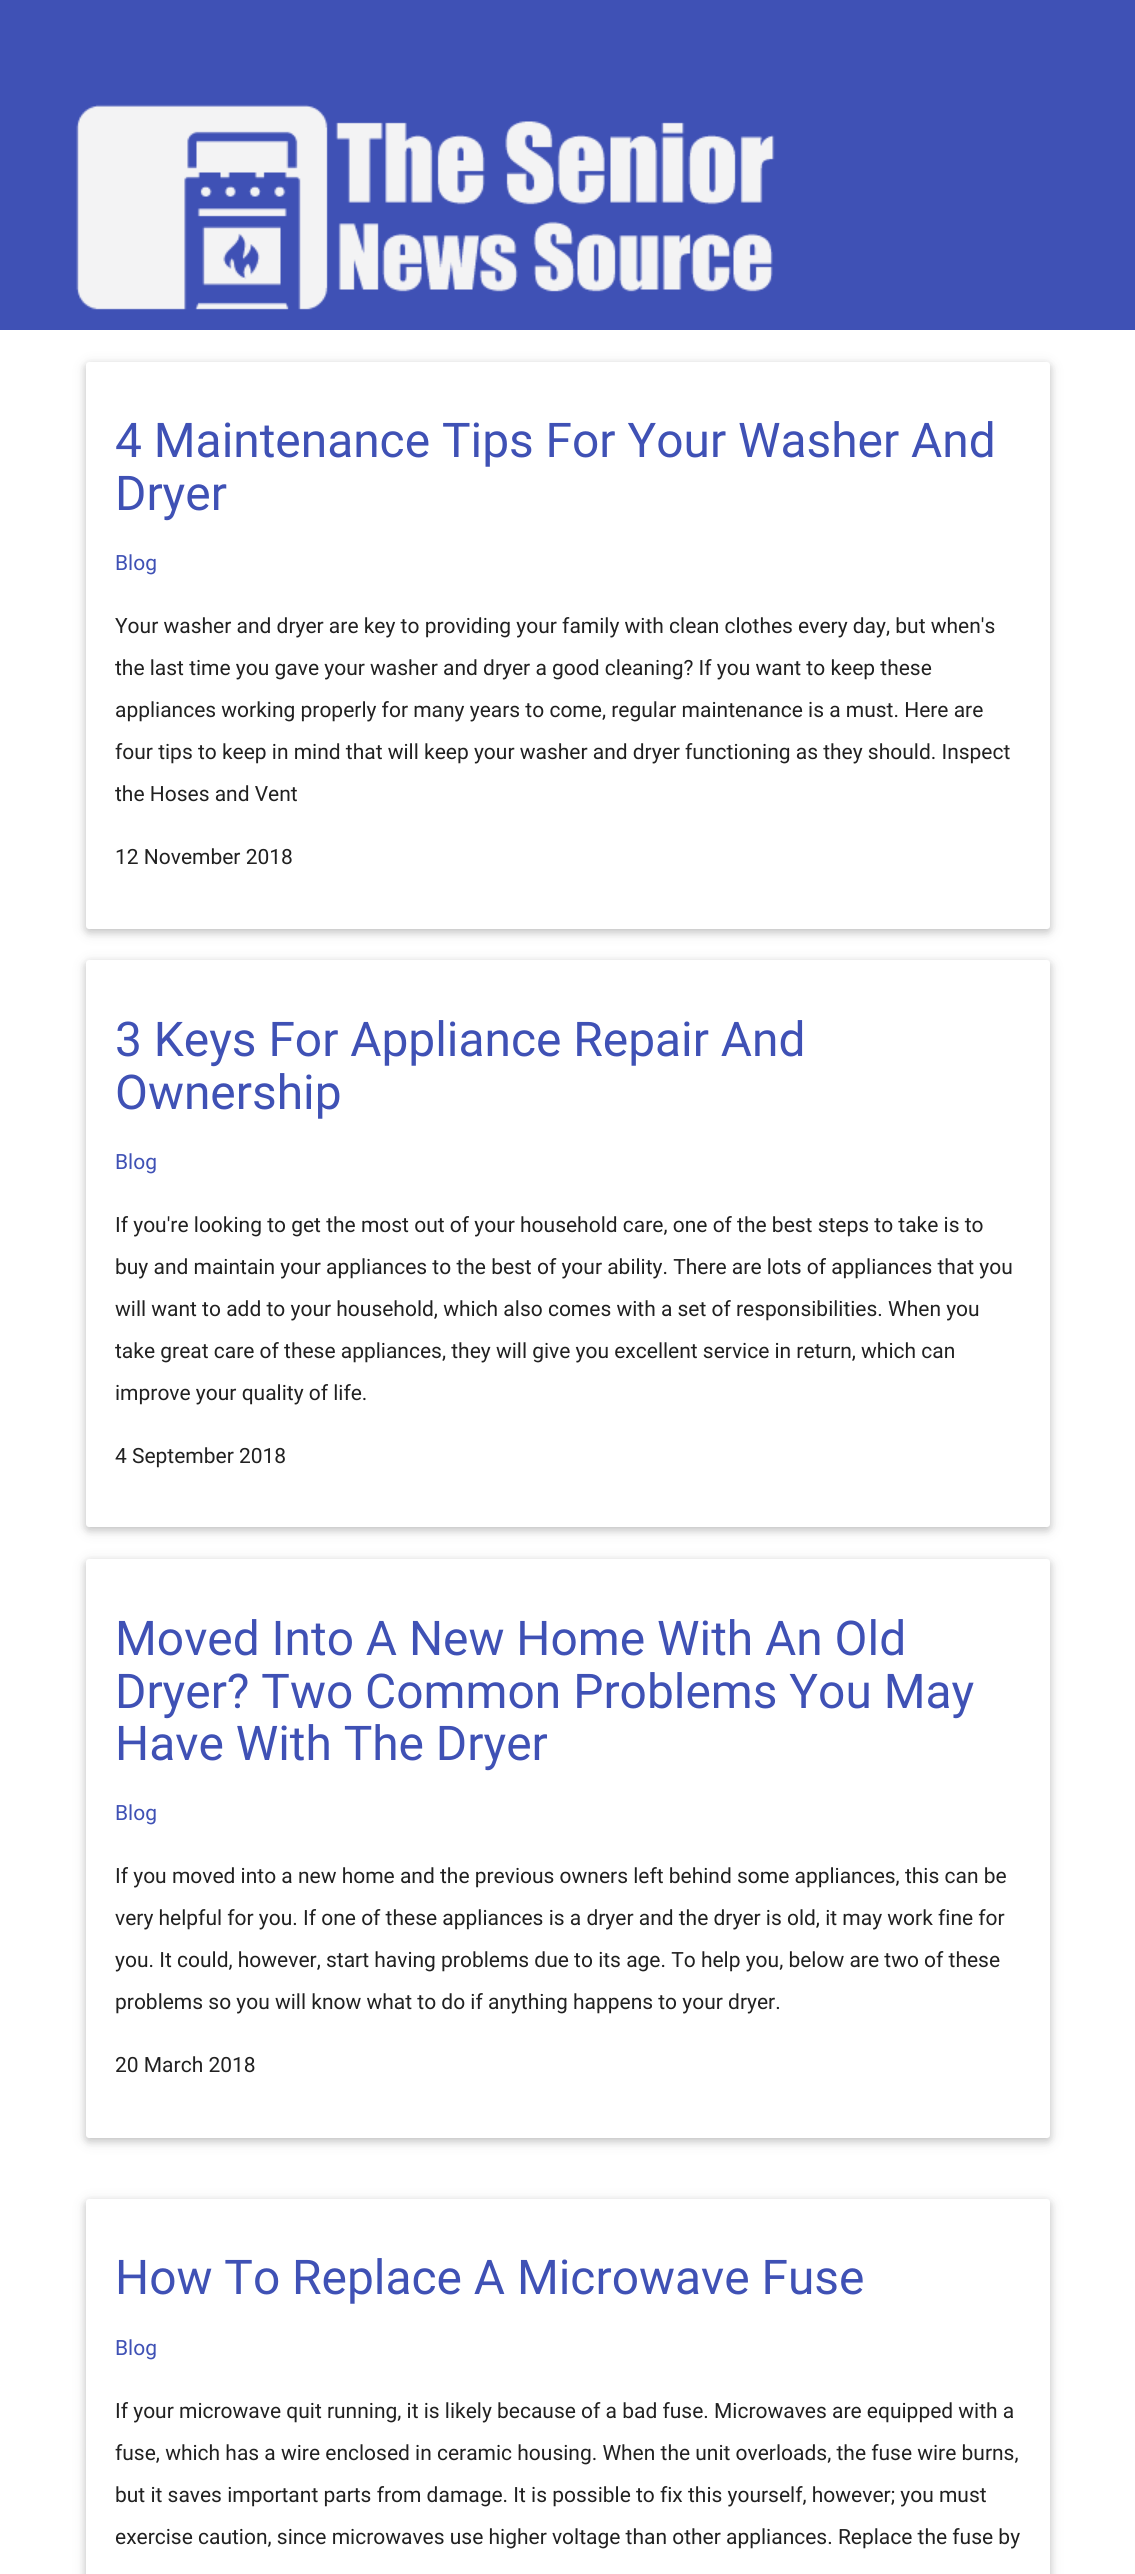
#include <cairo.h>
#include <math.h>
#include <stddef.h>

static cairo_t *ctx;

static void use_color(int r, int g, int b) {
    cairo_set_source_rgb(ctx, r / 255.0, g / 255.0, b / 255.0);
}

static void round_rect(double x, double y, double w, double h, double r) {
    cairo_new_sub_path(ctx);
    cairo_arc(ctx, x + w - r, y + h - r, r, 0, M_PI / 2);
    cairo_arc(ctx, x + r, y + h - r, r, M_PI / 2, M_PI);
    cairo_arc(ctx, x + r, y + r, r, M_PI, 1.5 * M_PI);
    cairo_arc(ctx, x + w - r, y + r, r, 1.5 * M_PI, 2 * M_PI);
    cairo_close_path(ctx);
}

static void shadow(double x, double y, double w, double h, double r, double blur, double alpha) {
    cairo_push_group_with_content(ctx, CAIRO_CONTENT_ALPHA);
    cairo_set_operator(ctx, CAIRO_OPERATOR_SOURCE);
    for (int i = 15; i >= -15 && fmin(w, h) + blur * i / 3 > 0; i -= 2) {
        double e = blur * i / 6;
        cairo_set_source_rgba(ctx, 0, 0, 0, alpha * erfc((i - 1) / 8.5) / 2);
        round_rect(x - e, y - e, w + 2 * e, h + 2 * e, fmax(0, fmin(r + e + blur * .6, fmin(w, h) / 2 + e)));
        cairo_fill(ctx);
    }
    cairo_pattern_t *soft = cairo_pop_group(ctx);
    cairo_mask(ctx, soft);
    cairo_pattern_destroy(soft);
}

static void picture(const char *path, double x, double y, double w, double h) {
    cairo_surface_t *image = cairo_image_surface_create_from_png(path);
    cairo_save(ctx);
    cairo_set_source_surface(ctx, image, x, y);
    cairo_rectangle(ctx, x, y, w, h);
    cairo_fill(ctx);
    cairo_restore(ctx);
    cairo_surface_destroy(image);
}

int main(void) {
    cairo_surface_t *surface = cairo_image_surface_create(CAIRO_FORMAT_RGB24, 1135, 2574);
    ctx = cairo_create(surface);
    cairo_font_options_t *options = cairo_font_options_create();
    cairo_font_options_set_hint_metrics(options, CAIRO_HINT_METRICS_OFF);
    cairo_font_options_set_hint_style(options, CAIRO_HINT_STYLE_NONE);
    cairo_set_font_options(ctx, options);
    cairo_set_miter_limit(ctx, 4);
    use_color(255, 255, 255);
    cairo_paint(ctx);
    use_color(63, 81, 181);
    cairo_rectangle(ctx, 0, 0, 1135, 330);
    cairo_fill(ctx);
    picture("img1.png", 76, 104, 699, 206);
    use_color(0, 0, 0);
    shadow(86, 365, 964, 567, 3, 7.5, 0.12);
    shadow(86, 365, 964, 567, 3, 4, 0.16);
    use_color(255, 255, 255);
    round_rect(86, 362, 964, 567, 3);
    cairo_fill(ctx);
    cairo_select_font_face(ctx, "Roboto", CAIRO_FONT_SLANT_NORMAL, CAIRO_FONT_WEIGHT_NORMAL);
    cairo_set_font_size(ctx, 47.9);
    use_color(63, 81, 181);
    cairo_move_to(ctx, 115, 457);
    cairo_show_text(ctx, "4 Maintenance Tips For Your Washer And");
    cairo_move_to(ctx, 115, 510);
    cairo_show_text(ctx, "Dryer");
    cairo_set_font_size(ctx, 21);
    cairo_move_to(ctx, 115, 570);
    cairo_show_text(ctx, "Blog");
    use_color(33, 33, 33);
    cairo_move_to(ctx, 115, 633);
    cairo_show_text(ctx, "Your washer and dryer are key to providing your family with clean clothes every day, but when's");
    cairo_move_to(ctx, 115, 675);
    cairo_show_text(ctx, "the last time you gave your washer and dryer a good cleaning? If you want to keep these");
    cairo_move_to(ctx, 115, 717);
    cairo_show_text(ctx, "appliances working properly for many years to come, regular maintenance is a must. Here are");
    cairo_move_to(ctx, 115, 759);
    cairo_show_text(ctx, "four tips to keep in mind that will keep your washer and dryer functioning as they should. Inspect");
    cairo_move_to(ctx, 115, 801);
    cairo_show_text(ctx, "the Hoses and Vent");
    cairo_move_to(ctx, 115, 864);
    cairo_show_text(ctx, "12 November 2018");
    use_color(0, 0, 0);
    shadow(86, 963, 964, 567, 3, 7.5, 0.12);
    shadow(86, 963, 964, 567, 3, 4, 0.16);
    use_color(255, 255, 255);
    round_rect(86, 960, 964, 567, 3);
    cairo_fill(ctx);
    cairo_set_font_size(ctx, 47.9);
    use_color(63, 81, 181);
    cairo_move_to(ctx, 115, 1056);
    cairo_show_text(ctx, "3 Keys For Appliance Repair And");
    cairo_move_to(ctx, 115, 1109);
    cairo_show_text(ctx, "Ownership");
    cairo_set_font_size(ctx, 21);
    cairo_move_to(ctx, 115, 1169);
    cairo_show_text(ctx, "Blog");
    use_color(33, 33, 33);
    cairo_move_to(ctx, 115, 1232);
    cairo_show_text(ctx, "If you're looking to get the most out of your household care, one of the best steps to take is to");
    cairo_move_to(ctx, 115, 1274);
    cairo_show_text(ctx, "buy and maintain your appliances to the best of your ability. There are lots of appliances that you");
    cairo_move_to(ctx, 115, 1316);
    cairo_show_text(ctx, "will want to add to your household, which also comes with a set of responsibilities. When you");
    cairo_move_to(ctx, 115, 1358);
    cairo_show_text(ctx, "take great care of these appliances, they will give you excellent service in return, which can");
    cairo_move_to(ctx, 115, 1400);
    cairo_show_text(ctx, "improve your quality of life.");
    cairo_move_to(ctx, 115, 1463);
    cairo_show_text(ctx, "4 September 2018");
    use_color(0, 0, 0);
    shadow(86, 1562, 964, 579, 3, 7.5, 0.12);
    shadow(86, 1562, 964, 579, 3, 4, 0.16);
    use_color(255, 255, 255);
    round_rect(86, 1559, 964, 579, 3);
    cairo_fill(ctx);
    cairo_set_font_size(ctx, 47.9);
    use_color(63, 81, 181);
    cairo_move_to(ctx, 115, 1655);
    cairo_show_text(ctx, "Moved Into A New Home With An Old");
    cairo_move_to(ctx, 115, 1708);
    cairo_show_text(ctx, "Dryer? Two Common Problems You May");
    cairo_move_to(ctx, 115, 1760);
    cairo_show_text(ctx, "Have With The Dryer");
    cairo_set_font_size(ctx, 21);
    cairo_move_to(ctx, 115, 1820);
    cairo_show_text(ctx, "Blog");
    use_color(33, 33, 33);
    cairo_move_to(ctx, 115, 1883);
    cairo_show_text(ctx, "If you moved into a new home and the previous owners left behind some appliances, this can be");
    cairo_move_to(ctx, 115, 1925);
    cairo_show_text(ctx, "very helpful for you. If one of these appliances is a dryer and the dryer is old, it may work fine for");
    cairo_move_to(ctx, 115, 1967);
    cairo_show_text(ctx, "you. It could, however, start having problems due to its age. To help you, below are two of these");
    cairo_move_to(ctx, 115, 2009);
    cairo_show_text(ctx, "problems so you will know what to do if anything happens to your dryer.");
    cairo_move_to(ctx, 115, 2072);
    cairo_show_text(ctx, "20 March 2018");
    use_color(0, 0, 0);
    shadow(86, 2202, 964, 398, 3, 7.5, 0.12);
    shadow(86, 2202, 964, 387, 3, 4, 0.16);
    use_color(255, 255, 255);
    round_rect(86, 2199, 964, 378, 3);
    cairo_fill(ctx);
    cairo_set_font_size(ctx, 47.9);
    use_color(63, 81, 181);
    cairo_move_to(ctx, 115, 2294);
    cairo_show_text(ctx, "How To Replace A Microwave Fuse");
    cairo_set_font_size(ctx, 21);
    cairo_move_to(ctx, 115, 2355);
    cairo_show_text(ctx, "Blog");
    use_color(33, 33, 33);
    cairo_move_to(ctx, 115, 2418);
    cairo_show_text(ctx, "If your microwave quit running, it is likely because of a bad fuse. Microwaves are equipped with a");
    cairo_move_to(ctx, 115, 2460);
    cairo_show_text(ctx, "fuse, which has a wire enclosed in ceramic housing. When the unit overloads, the fuse wire burns,");
    cairo_move_to(ctx, 115, 2502);
    cairo_show_text(ctx, "but it saves important parts from damage. It is possible to fix this yourself, however; you must");
    cairo_move_to(ctx, 115, 2544);
    cairo_show_text(ctx, "exercise caution, since microwaves use higher voltage than other appliances. Replace the fuse by");
    cairo_surface_write_to_png(surface, "result.png");
    cairo_font_options_destroy(options);
    cairo_destroy(ctx);
    cairo_surface_destroy(surface);
    return 0;
}
